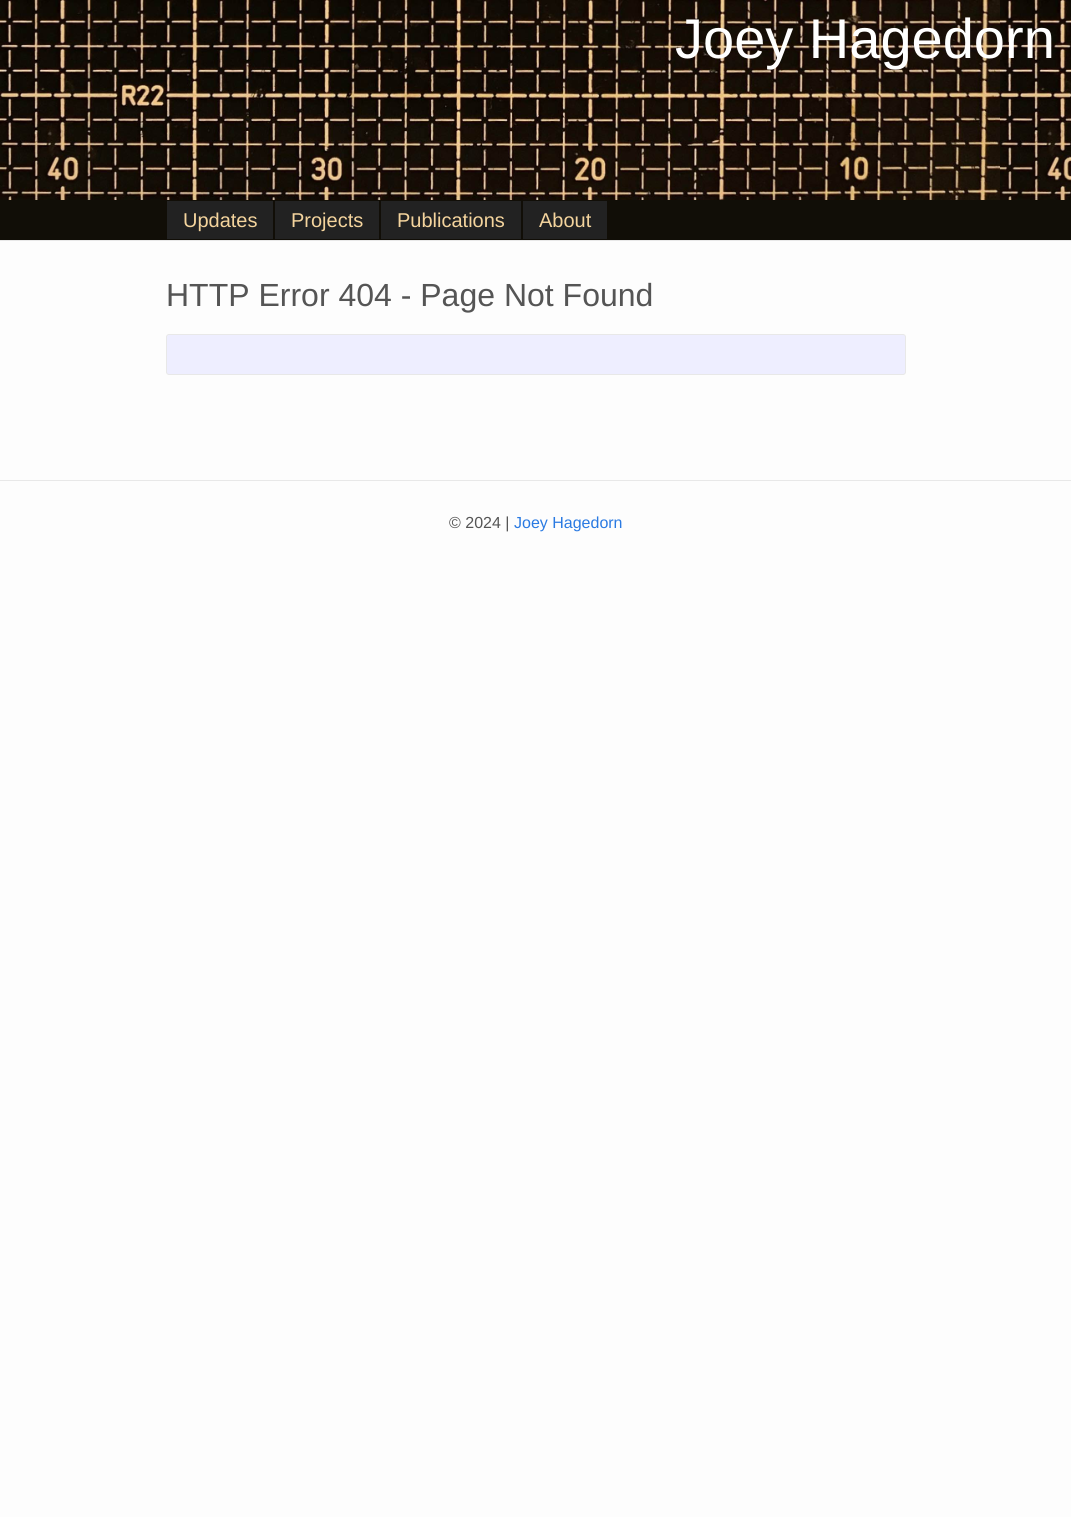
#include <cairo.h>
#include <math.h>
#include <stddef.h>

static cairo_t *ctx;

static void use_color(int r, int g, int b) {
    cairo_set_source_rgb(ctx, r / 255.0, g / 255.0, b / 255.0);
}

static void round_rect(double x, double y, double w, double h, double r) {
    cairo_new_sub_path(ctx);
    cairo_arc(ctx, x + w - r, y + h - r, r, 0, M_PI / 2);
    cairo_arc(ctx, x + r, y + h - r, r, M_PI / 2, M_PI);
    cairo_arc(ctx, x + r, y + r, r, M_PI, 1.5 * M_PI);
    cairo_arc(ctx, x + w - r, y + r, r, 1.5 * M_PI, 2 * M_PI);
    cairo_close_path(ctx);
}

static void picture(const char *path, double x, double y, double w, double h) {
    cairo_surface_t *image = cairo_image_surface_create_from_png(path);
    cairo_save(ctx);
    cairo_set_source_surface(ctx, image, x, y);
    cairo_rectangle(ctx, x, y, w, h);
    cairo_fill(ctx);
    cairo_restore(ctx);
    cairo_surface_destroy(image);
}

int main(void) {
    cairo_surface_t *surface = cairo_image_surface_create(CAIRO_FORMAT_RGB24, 1071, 1517);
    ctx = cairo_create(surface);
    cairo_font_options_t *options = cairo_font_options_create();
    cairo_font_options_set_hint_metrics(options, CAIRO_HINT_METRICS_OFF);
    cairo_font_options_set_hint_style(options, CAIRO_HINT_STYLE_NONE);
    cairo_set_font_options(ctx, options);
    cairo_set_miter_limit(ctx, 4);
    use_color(253, 253, 253);
    cairo_paint(ctx);
    use_color(17, 14, 7);
    cairo_rectangle(ctx, 0, 200, 1071, 40);
    cairo_fill(ctx);
    use_color(232, 232, 232);
    cairo_rectangle(ctx, 0, 240, 1071, 1);
    cairo_fill(ctx);
    picture("img1.png", 0, 0, 1071, 200);
    cairo_select_font_face(ctx, "Liberation Sans", CAIRO_FONT_SLANT_NORMAL, CAIRO_FONT_WEIGHT_NORMAL);
    cairo_set_font_size(ctx, 56);
    use_color(255, 255, 255);
    cairo_move_to(ctx, 675, 58);
    cairo_show_text(ctx, "Joey Hagedorn");
    use_color(34, 34, 34);
    cairo_rectangle(ctx, 167, 201, 106, 38);
    cairo_fill(ctx);
    cairo_set_font_size(ctx, 20);
    use_color(244, 212, 157);
    cairo_move_to(ctx, 183, 227);
    cairo_show_text(ctx, "Updates");
    use_color(34, 34, 34);
    cairo_rectangle(ctx, 275, 201, 104, 38);
    cairo_fill(ctx);
    use_color(244, 212, 157);
    cairo_move_to(ctx, 291, 227);
    cairo_show_text(ctx, "Projects");
    use_color(34, 34, 34);
    cairo_rectangle(ctx, 381, 201, 140, 38);
    cairo_fill(ctx);
    use_color(244, 212, 157);
    cairo_move_to(ctx, 397, 227);
    cairo_show_text(ctx, "Publications");
    use_color(34, 34, 34);
    cairo_rectangle(ctx, 523, 201, 84, 38);
    cairo_fill(ctx);
    use_color(244, 212, 157);
    cairo_move_to(ctx, 539, 227);
    cairo_show_text(ctx, "About");
    cairo_set_font_size(ctx, 32);
    use_color(85, 85, 85);
    cairo_move_to(ctx, 166, 306);
    cairo_show_text(ctx, "HTTP Error 404 - Page Not Found");
    use_color(238, 238, 255);
    round_rect(166.5, 334.5, 739, 40, 2.5);
    cairo_fill_preserve(ctx);
    use_color(232, 232, 232);
    cairo_set_line_width(ctx, 1);
    cairo_stroke(ctx);
    cairo_rectangle(ctx, 0, 480, 1071, 1);
    cairo_fill(ctx);
    cairo_set_font_size(ctx, 16);
    use_color(85, 85, 85);
    cairo_move_to(ctx, 449, 528);
    cairo_show_text(ctx, "© 2024 |");
    use_color(42, 122, 226);
    cairo_move_to(ctx, 514, 528);
    cairo_show_text(ctx, "Joey Hagedorn");
    cairo_surface_write_to_png(surface, "result.png");
    cairo_font_options_destroy(options);
    cairo_destroy(ctx);
    cairo_surface_destroy(surface);
    return 0;
}
